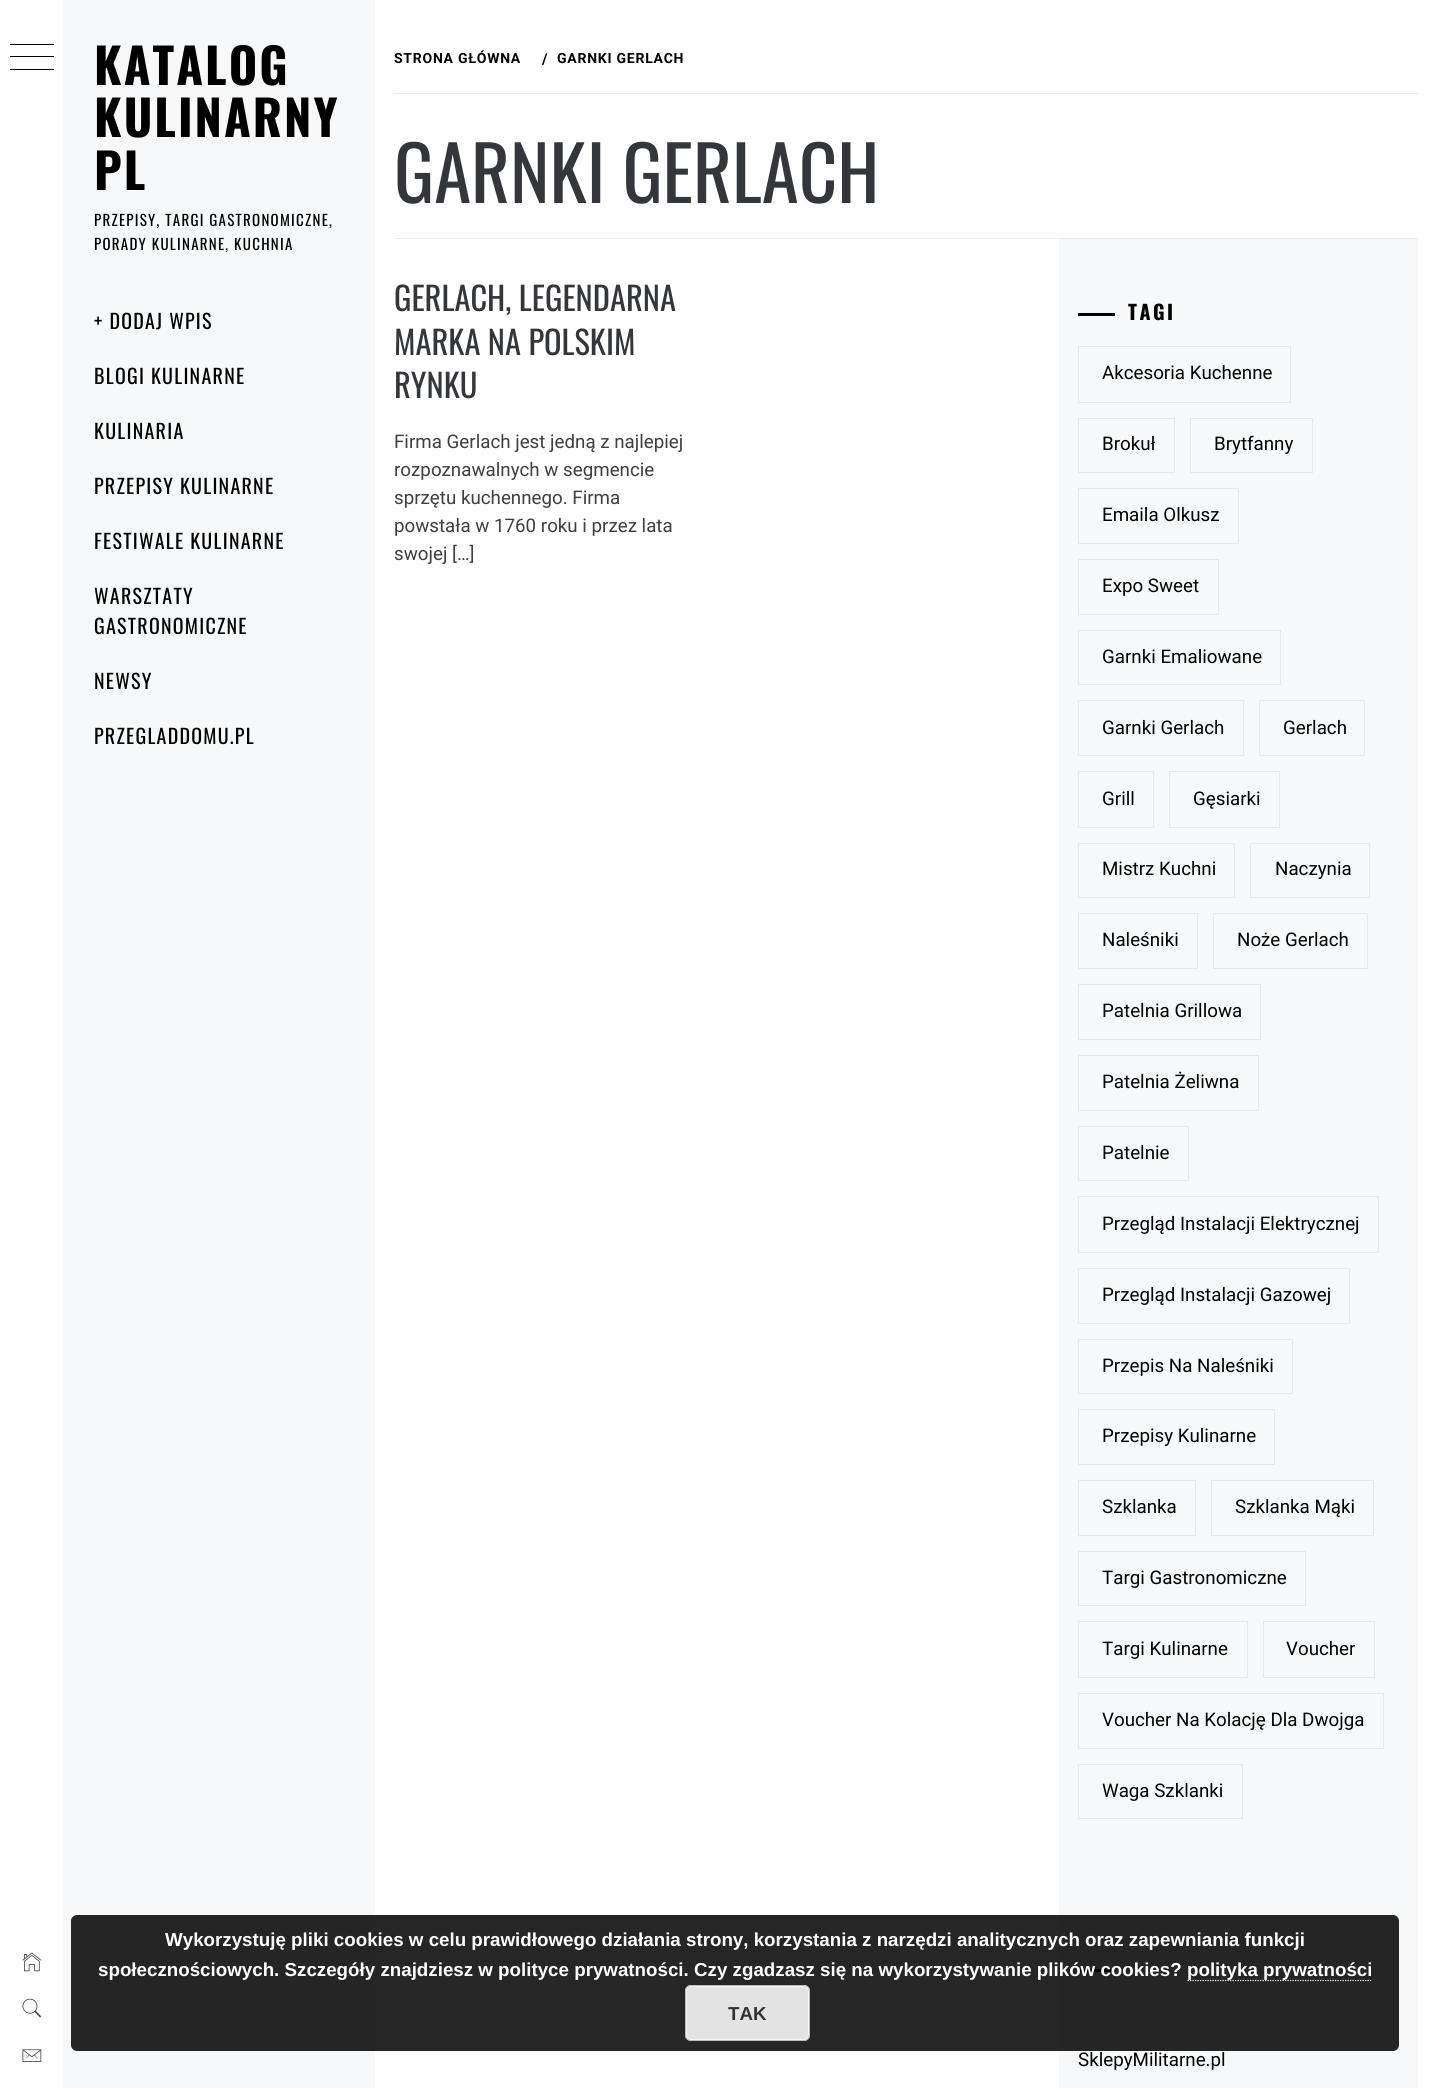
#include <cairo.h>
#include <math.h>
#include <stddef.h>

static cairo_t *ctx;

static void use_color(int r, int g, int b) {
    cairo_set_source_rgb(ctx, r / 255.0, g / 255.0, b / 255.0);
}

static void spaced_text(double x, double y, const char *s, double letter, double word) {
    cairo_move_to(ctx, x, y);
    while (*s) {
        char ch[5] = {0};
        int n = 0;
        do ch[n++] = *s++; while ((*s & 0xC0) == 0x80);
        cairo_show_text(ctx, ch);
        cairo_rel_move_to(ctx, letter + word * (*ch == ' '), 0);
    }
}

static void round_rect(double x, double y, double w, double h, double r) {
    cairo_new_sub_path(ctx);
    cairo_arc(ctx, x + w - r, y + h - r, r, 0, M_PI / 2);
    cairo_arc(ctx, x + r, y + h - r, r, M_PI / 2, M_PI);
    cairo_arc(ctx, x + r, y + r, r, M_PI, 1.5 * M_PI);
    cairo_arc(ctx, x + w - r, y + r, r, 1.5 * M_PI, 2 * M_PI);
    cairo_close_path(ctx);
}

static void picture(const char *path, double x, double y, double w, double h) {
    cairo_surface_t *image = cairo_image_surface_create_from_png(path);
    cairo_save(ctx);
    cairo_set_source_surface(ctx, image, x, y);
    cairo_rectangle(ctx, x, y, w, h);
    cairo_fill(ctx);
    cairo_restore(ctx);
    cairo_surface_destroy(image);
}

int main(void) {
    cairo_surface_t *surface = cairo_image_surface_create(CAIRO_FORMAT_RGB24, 1436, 2088);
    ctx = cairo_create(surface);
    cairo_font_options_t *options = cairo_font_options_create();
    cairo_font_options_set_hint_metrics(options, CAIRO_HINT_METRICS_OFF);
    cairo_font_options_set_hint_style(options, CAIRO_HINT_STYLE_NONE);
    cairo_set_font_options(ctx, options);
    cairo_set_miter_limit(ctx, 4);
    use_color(255, 255, 255);
    cairo_paint(ctx);
    use_color(0, 0, 0);
    cairo_rectangle(ctx, 10, 44, 44, 1);
    cairo_fill(ctx);
    cairo_rectangle(ctx, 10, 56, 44, 1);
    cairo_fill(ctx);
    cairo_rectangle(ctx, 10, 69, 44, 1);
    cairo_fill(ctx);
    picture("img1.png", 22, 1952, 20, 20);
    picture("img2.png", 22, 1998, 20, 20);
    picture("img3.png", 22, 2049, 20, 13);
    use_color(246, 248, 249);
    cairo_rectangle(ctx, 63, 0, 312, 2088);
    cairo_fill(ctx);
    cairo_select_font_face(ctx, "Oswald", CAIRO_FONT_SLANT_NORMAL, CAIRO_FONT_WEIGHT_BOLD);
    cairo_set_font_size(ctx, 48.75);
    use_color(0, 0, 0);
    spaced_text(94, 85, "KATALOG", 2, 0);
    spaced_text(94, 137, "KULINARNY", 2, 0);
    spaced_text(94, 190, "PL", 2, 0);
    cairo_select_font_face(ctx, "Oswald", CAIRO_FONT_SLANT_NORMAL, CAIRO_FONT_WEIGHT_NORMAL);
    cairo_set_font_size(ctx, 15);
    spaced_text(94, 226, "PRZEPISY, TARGI GASTRONOMICZNE,", 1.25, 0);
    spaced_text(94, 250, "PORADY KULINARNE, KUCHNIA", 1.25, 0);
    cairo_set_font_size(ctx, 20);
    spaced_text(94, 329, "+ DODAJ WPIS", 1.25, 0);
    spaced_text(94, 384, "BLOGI KULINARNE", 1.25, 0);
    spaced_text(94, 439, "KULINARIA", 1.25, 0);
    spaced_text(94, 494, "PRZEPISY KULINARNE", 1.25, 0);
    spaced_text(94, 549, "FESTIWALE KULINARNE", 1.25, 0);
    spaced_text(94, 604, "WARSZTATY", 1.25, 0);
    spaced_text(94, 634, "GASTRONOMICZNE", 1.25, 0);
    spaced_text(94, 689, "NEWSY", 1.25, 0);
    spaced_text(94, 744, "PRZEGLADDOMU.PL", 1.25, 0);
    use_color(234, 234, 234);
    cairo_rectangle(ctx, 394, 238, 1024, 1);
    cairo_fill(ctx);
    cairo_rectangle(ctx, 394, 93, 1024, 1);
    cairo_fill(ctx);
    cairo_select_font_face(ctx, "Roboto", CAIRO_FONT_SLANT_NORMAL, CAIRO_FONT_WEIGHT_BOLD);
    cairo_set_font_size(ctx, 14);
    use_color(0, 0, 0);
    spaced_text(394, 63, "STRONA GŁÓWNA", 0.75, 0);
    cairo_set_font_size(ctx, 15);
    spaced_text(542, 64, "/", 0.75, 0);
    cairo_set_font_size(ctx, 14);
    spaced_text(557, 63, "GARNKI GERLACH", 0.75, 0);
    cairo_select_font_face(ctx, "Oswald", CAIRO_FONT_SLANT_NORMAL, CAIRO_FONT_WEIGHT_NORMAL);
    cairo_set_font_size(ctx, 75);
    use_color(51, 54, 59);
    cairo_move_to(ctx, 394, 203);
    cairo_show_text(ctx, "GARNKI GERLACH");
    cairo_set_font_size(ctx, 32.5);
    cairo_move_to(ctx, 394, 311);
    cairo_show_text(ctx, "GERLACH, LEGENDARNA");
    cairo_move_to(ctx, 394, 355);
    cairo_show_text(ctx, "MARKA NA POLSKIM");
    cairo_move_to(ctx, 394, 398);
    cairo_show_text(ctx, "RYNKU");
    cairo_select_font_face(ctx, "Roboto", CAIRO_FONT_SLANT_NORMAL, CAIRO_FONT_WEIGHT_NORMAL);
    cairo_set_font_size(ctx, 18.75);
    use_color(62, 63, 64);
    cairo_move_to(ctx, 394, 448);
    cairo_show_text(ctx, "Firma Gerlach jest jedną z najlepiej");
    cairo_move_to(ctx, 394, 476);
    cairo_show_text(ctx, "rozpoznawalnych w segmencie");
    cairo_move_to(ctx, 394, 504);
    cairo_show_text(ctx, "sprzętu kuchennego. Firma");
    cairo_move_to(ctx, 394, 532);
    cairo_show_text(ctx, "powstała w 1760 roku i przez lata");
    cairo_move_to(ctx, 394, 560);
    cairo_show_text(ctx, "swojej […]");
    use_color(246, 248, 249);
    cairo_rectangle(ctx, 1059, 239, 359, 1849);
    cairo_fill(ctx);
    use_color(0, 0, 0);
    cairo_rectangle(ctx, 1078, 313, 37, 3);
    cairo_fill(ctx);
    cairo_select_font_face(ctx, "Oswald", CAIRO_FONT_SLANT_NORMAL, CAIRO_FONT_WEIGHT_BOLD);
    cairo_set_font_size(ctx, 20);
    spaced_text(1128, 320, "TAGI", 2.5, 0);
    cairo_rectangle(ctx, 1078.5, 346.5, 212, 56);
    use_color(232, 232, 232);
    cairo_set_line_width(ctx, 1);
    cairo_stroke(ctx);
    cairo_select_font_face(ctx, "Roboto", CAIRO_FONT_SLANT_NORMAL, CAIRO_FONT_WEIGHT_NORMAL);
    cairo_set_font_size(ctx, 18.75);
    use_color(0, 0, 0);
    cairo_move_to(ctx, 1102, 379);
    cairo_show_text(ctx, "Akcesoria Kuchenne");
    cairo_rectangle(ctx, 1078.5, 418.5, 96, 54);
    use_color(232, 232, 232);
    cairo_stroke(ctx);
    use_color(0, 0, 0);
    cairo_move_to(ctx, 1102, 450);
    cairo_show_text(ctx, "Brokuł");
    cairo_rectangle(ctx, 1190.5, 418.5, 122, 54);
    use_color(232, 232, 232);
    cairo_stroke(ctx);
    use_color(0, 0, 0);
    cairo_move_to(ctx, 1214, 450);
    cairo_show_text(ctx, "Brytfanny");
    cairo_rectangle(ctx, 1078.5, 488.5, 160, 55);
    use_color(232, 232, 232);
    cairo_stroke(ctx);
    use_color(0, 0, 0);
    cairo_move_to(ctx, 1102, 521);
    cairo_show_text(ctx, "Emaila Olkusz");
    cairo_rectangle(ctx, 1078.5, 559.5, 140, 55);
    use_color(232, 232, 232);
    cairo_stroke(ctx);
    use_color(0, 0, 0);
    cairo_move_to(ctx, 1102, 592);
    cairo_show_text(ctx, "Expo Sweet");
    cairo_rectangle(ctx, 1078.5, 630.5, 202, 54);
    use_color(232, 232, 232);
    cairo_stroke(ctx);
    use_color(0, 0, 0);
    cairo_move_to(ctx, 1102, 663);
    cairo_show_text(ctx, "Garnki Emaliowane");
    cairo_rectangle(ctx, 1078.5, 700.5, 165, 55);
    use_color(232, 232, 232);
    cairo_stroke(ctx);
    use_color(0, 0, 0);
    cairo_move_to(ctx, 1102, 734);
    cairo_show_text(ctx, "Garnki Gerlach");
    cairo_rectangle(ctx, 1259.5, 700.5, 105, 55);
    use_color(232, 232, 232);
    cairo_stroke(ctx);
    use_color(0, 0, 0);
    cairo_move_to(ctx, 1283, 734);
    cairo_show_text(ctx, "Gerlach");
    cairo_rectangle(ctx, 1078.5, 771.5, 75, 56);
    use_color(232, 232, 232);
    cairo_stroke(ctx);
    use_color(0, 0, 0);
    cairo_move_to(ctx, 1102, 805);
    cairo_show_text(ctx, "Grill");
    cairo_rectangle(ctx, 1169.5, 771.5, 110, 56);
    use_color(232, 232, 232);
    cairo_stroke(ctx);
    use_color(0, 0, 0);
    cairo_move_to(ctx, 1193, 805);
    cairo_show_text(ctx, "Gęsiarki");
    cairo_rectangle(ctx, 1078.5, 843.5, 156, 54);
    use_color(232, 232, 232);
    cairo_stroke(ctx);
    use_color(0, 0, 0);
    cairo_move_to(ctx, 1102, 875);
    cairo_show_text(ctx, "Mistrz Kuchni");
    cairo_rectangle(ctx, 1250.5, 843.5, 119, 54);
    use_color(232, 232, 232);
    cairo_stroke(ctx);
    use_color(0, 0, 0);
    cairo_move_to(ctx, 1275, 875);
    cairo_show_text(ctx, "Naczynia");
    cairo_rectangle(ctx, 1078.5, 913.5, 119, 55);
    use_color(232, 232, 232);
    cairo_stroke(ctx);
    use_color(0, 0, 0);
    cairo_move_to(ctx, 1102, 946);
    cairo_show_text(ctx, "Naleśniki");
    cairo_rectangle(ctx, 1213.5, 913.5, 154, 55);
    use_color(232, 232, 232);
    cairo_stroke(ctx);
    use_color(0, 0, 0);
    cairo_move_to(ctx, 1237, 946);
    cairo_show_text(ctx, "Noże Gerlach");
    cairo_rectangle(ctx, 1078.5, 984.5, 182, 55);
    use_color(232, 232, 232);
    cairo_stroke(ctx);
    use_color(0, 0, 0);
    cairo_move_to(ctx, 1102, 1017);
    cairo_show_text(ctx, "Patelnia Grillowa");
    cairo_rectangle(ctx, 1078.5, 1055.5, 180, 55);
    use_color(232, 232, 232);
    cairo_stroke(ctx);
    use_color(0, 0, 0);
    cairo_move_to(ctx, 1102, 1088);
    cairo_show_text(ctx, "Patelnia Żeliwna");
    cairo_rectangle(ctx, 1078.5, 1126.5, 110, 54);
    use_color(232, 232, 232);
    cairo_stroke(ctx);
    use_color(0, 0, 0);
    cairo_move_to(ctx, 1102, 1159);
    cairo_show_text(ctx, "Patelnie");
    cairo_rectangle(ctx, 1078.5, 1196.5, 300, 56);
    use_color(232, 232, 232);
    cairo_stroke(ctx);
    use_color(0, 0, 0);
    cairo_move_to(ctx, 1102, 1230);
    cairo_show_text(ctx, "Przegląd Instalacji Elektrycznej");
    cairo_rectangle(ctx, 1078.5, 1268.5, 271, 55);
    use_color(232, 232, 232);
    cairo_stroke(ctx);
    use_color(0, 0, 0);
    cairo_move_to(ctx, 1102, 1301);
    cairo_show_text(ctx, "Przegląd Instalacji Gazowej");
    cairo_rectangle(ctx, 1078.5, 1339.5, 214, 54);
    use_color(232, 232, 232);
    cairo_stroke(ctx);
    use_color(0, 0, 0);
    cairo_move_to(ctx, 1102, 1372);
    cairo_show_text(ctx, "Przepis Na Naleśniki");
    cairo_rectangle(ctx, 1078.5, 1409.5, 196, 55);
    use_color(232, 232, 232);
    cairo_stroke(ctx);
    use_color(0, 0, 0);
    cairo_move_to(ctx, 1102, 1442);
    cairo_show_text(ctx, "Przepisy Kulinarne");
    cairo_rectangle(ctx, 1078.5, 1480.5, 117, 55);
    use_color(232, 232, 232);
    cairo_stroke(ctx);
    use_color(0, 0, 0);
    cairo_move_to(ctx, 1102, 1513);
    cairo_show_text(ctx, "Szklanka");
    cairo_rectangle(ctx, 1211.5, 1480.5, 162, 55);
    use_color(232, 232, 232);
    cairo_stroke(ctx);
    use_color(0, 0, 0);
    cairo_move_to(ctx, 1235, 1513);
    cairo_show_text(ctx, "Szklanka Mąki");
    cairo_rectangle(ctx, 1078.5, 1551.5, 227, 54);
    use_color(232, 232, 232);
    cairo_stroke(ctx);
    use_color(0, 0, 0);
    cairo_move_to(ctx, 1102, 1584);
    cairo_show_text(ctx, "Targi Gastronomiczne");
    cairo_rectangle(ctx, 1078.5, 1621.5, 169, 56);
    use_color(232, 232, 232);
    cairo_stroke(ctx);
    use_color(0, 0, 0);
    cairo_move_to(ctx, 1102, 1655);
    cairo_show_text(ctx, "Targi Kulinarne");
    cairo_rectangle(ctx, 1263.5, 1621.5, 111, 56);
    use_color(232, 232, 232);
    cairo_stroke(ctx);
    use_color(0, 0, 0);
    cairo_move_to(ctx, 1286, 1655);
    cairo_show_text(ctx, "Voucher");
    cairo_rectangle(ctx, 1078.5, 1693.5, 305, 55);
    use_color(232, 232, 232);
    cairo_stroke(ctx);
    use_color(0, 0, 0);
    cairo_move_to(ctx, 1102, 1726);
    cairo_show_text(ctx, "Voucher Na Kolację Dla Dwojga");
    cairo_rectangle(ctx, 1078.5, 1764.5, 164, 54);
    use_color(232, 232, 232);
    cairo_stroke(ctx);
    use_color(0, 0, 0);
    cairo_move_to(ctx, 1102, 1797);
    cairo_show_text(ctx, "Waga Szklanki");
    cairo_rectangle(ctx, 1078, 1969, 37, 3);
    cairo_fill(ctx);
    cairo_move_to(ctx, 1078, 2066);
    cairo_show_text(ctx, "SklepyMilitarne.pl");
    cairo_set_source_rgba(ctx, 0, 0, 0, 0.85);
    round_rect(71, 1915, 1328, 136, 6);
    cairo_fill(ctx);
    cairo_select_font_face(ctx, "Liberation Sans", CAIRO_FONT_SLANT_NORMAL, CAIRO_FONT_WEIGHT_BOLD);
    use_color(255, 255, 255);
    cairo_move_to(ctx, 165, 1946);
    cairo_show_text(ctx, "Wykorzystuję pliki cookies w celu prawidłowego działania strony, korzystania z narzędzi analitycznych oraz zapewniania funkcji");
    cairo_move_to(ctx, 98, 1976);
    cairo_show_text(ctx, "społecznościowych. Szczegóły znajdziesz w polityce prywatności. Czy zgadzasz się na wykorzystywanie plików cookies?");
    cairo_new_path(ctx);
    cairo_move_to(ctx, 1187.5, 1980.5);
    cairo_line_to(ctx, 1372.5, 1980.5);
    cairo_set_line_width(ctx, 1.2);
    cairo_set_dash(ctx, (double[]){1.25, 1.25}, 2, 0);
    cairo_stroke(ctx);
    cairo_move_to(ctx, 1187, 1976);
    cairo_show_text(ctx, "polityka prywatności");
    use_color(227, 227, 227);
    round_rect(685, 1985, 125, 56, 6);
    cairo_fill(ctx);
    round_rect(686.5, 1986.5, 122, 53, 4.5);
    use_color(246, 246, 246);
    cairo_set_line_width(ctx, 1);
    cairo_set_dash(ctx, NULL, 0, 0);
    cairo_stroke(ctx);
    round_rect(685.5, 1985.5, 124, 55, 5.5);
    use_color(187, 187, 187);
    cairo_stroke(ctx);
    use_color(51, 51, 51);
    cairo_move_to(ctx, 728, 2020);
    cairo_show_text(ctx, "TAK");
    cairo_surface_write_to_png(surface, "result.png");
    cairo_font_options_destroy(options);
    cairo_destroy(ctx);
    cairo_surface_destroy(surface);
    return 0;
}
